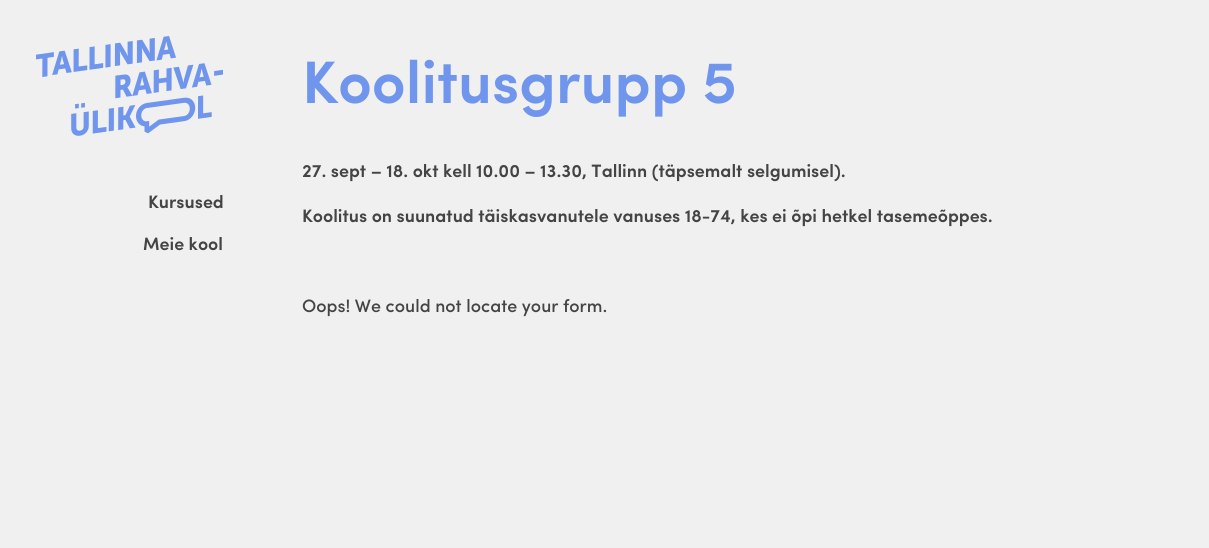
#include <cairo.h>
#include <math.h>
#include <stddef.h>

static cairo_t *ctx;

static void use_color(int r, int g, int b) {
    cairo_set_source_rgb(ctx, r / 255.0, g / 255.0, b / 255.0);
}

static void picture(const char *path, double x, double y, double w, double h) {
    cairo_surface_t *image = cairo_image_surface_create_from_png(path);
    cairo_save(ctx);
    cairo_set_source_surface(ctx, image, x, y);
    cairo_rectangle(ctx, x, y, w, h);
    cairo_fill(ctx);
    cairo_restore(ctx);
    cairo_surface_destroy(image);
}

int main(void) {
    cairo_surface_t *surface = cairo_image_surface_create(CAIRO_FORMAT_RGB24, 1209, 548);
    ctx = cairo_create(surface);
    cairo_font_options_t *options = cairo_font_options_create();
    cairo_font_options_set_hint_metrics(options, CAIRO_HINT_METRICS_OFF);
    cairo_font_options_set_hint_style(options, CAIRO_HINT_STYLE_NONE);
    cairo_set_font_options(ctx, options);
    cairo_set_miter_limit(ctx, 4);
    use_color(240, 240, 240);
    cairo_paint(ctx);
    picture("img1.png", 36, 36, 187, 100);
    cairo_select_font_face(ctx, "Sofia SemiBold", CAIRO_FONT_SLANT_NORMAL, CAIRO_FONT_WEIGHT_NORMAL);
    cairo_set_font_size(ctx, 18);
    use_color(68, 68, 68);
    cairo_move_to(ctx, 148, 208);
    cairo_show_text(ctx, "Kursused");
    cairo_move_to(ctx, 143, 250);
    cairo_show_text(ctx, "Meie kool");
    cairo_set_font_size(ctx, 60);
    use_color(111, 149, 237);
    cairo_move_to(ctx, 302, 103);
    cairo_show_text(ctx, "Koolitusgrupp 5");
    cairo_set_font_size(ctx, 18);
    use_color(68, 68, 68);
    cairo_move_to(ctx, 302, 177);
    cairo_show_text(ctx, "27. sept – 18. okt kell 10.00 – 13.30, Tallinn (täpsemalt selgumisel).");
    cairo_move_to(ctx, 302, 222);
    cairo_show_text(ctx, "Koolitus on suunatud täiskasvanutele vanuses 18-74, kes ei õpi hetkel tasemeõppes.");
    cairo_select_font_face(ctx, "Sofia Medium", CAIRO_FONT_SLANT_NORMAL, CAIRO_FONT_WEIGHT_NORMAL);
    cairo_move_to(ctx, 302, 312);
    cairo_show_text(ctx, "Oops! We could not locate your form.");
    cairo_surface_write_to_png(surface, "result.png");
    cairo_font_options_destroy(options);
    cairo_destroy(ctx);
    cairo_surface_destroy(surface);
    return 0;
}
